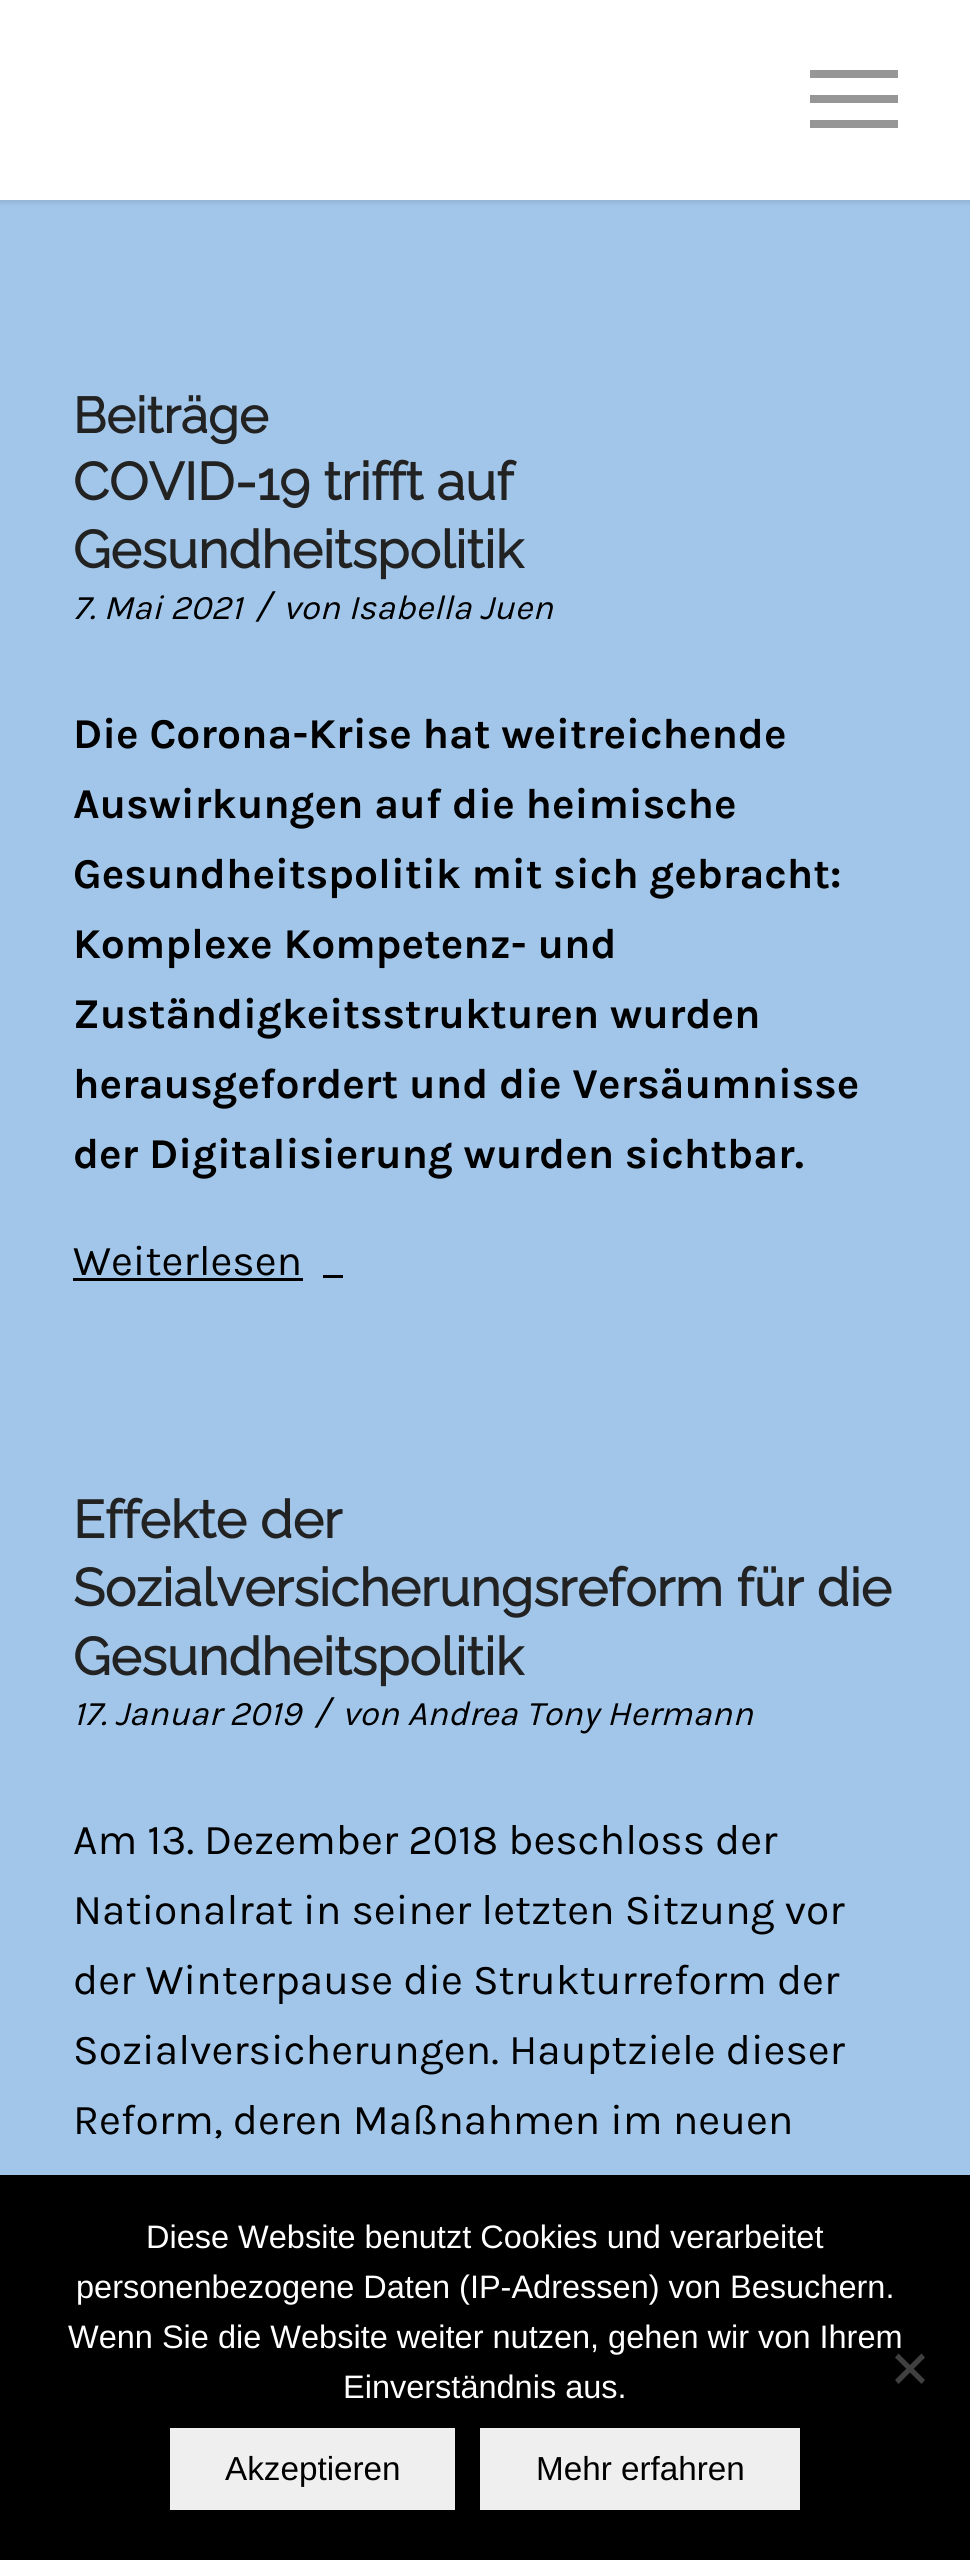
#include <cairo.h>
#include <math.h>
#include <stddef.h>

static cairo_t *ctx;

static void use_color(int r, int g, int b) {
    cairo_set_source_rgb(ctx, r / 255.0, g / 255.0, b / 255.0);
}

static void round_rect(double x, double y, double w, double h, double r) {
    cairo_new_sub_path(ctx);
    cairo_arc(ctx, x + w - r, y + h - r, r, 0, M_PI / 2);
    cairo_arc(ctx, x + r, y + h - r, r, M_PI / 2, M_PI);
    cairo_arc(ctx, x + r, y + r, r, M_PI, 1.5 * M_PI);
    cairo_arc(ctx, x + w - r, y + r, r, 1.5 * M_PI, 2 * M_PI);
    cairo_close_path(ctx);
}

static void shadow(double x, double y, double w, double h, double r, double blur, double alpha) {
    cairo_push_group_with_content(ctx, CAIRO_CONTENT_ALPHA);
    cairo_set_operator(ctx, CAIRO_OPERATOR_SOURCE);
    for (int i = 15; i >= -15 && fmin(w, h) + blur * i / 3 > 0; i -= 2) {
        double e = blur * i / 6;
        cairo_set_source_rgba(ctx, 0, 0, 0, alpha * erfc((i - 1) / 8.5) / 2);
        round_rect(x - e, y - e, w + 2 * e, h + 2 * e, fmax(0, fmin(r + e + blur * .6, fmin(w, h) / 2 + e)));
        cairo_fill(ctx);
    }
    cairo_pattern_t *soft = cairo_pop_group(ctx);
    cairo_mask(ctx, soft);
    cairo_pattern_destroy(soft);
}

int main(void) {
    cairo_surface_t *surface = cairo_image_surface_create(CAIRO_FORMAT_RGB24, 970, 2560);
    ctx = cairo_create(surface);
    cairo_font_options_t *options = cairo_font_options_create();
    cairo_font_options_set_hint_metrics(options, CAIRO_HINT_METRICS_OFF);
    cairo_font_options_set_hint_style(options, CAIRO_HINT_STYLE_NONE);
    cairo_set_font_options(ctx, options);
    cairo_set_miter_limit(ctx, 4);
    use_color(161, 198, 234);
    cairo_paint(ctx);
    use_color(0, 0, 0);
    shadow(-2, -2, 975, 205, 0, 2.5, 0.1);
    use_color(255, 255, 255);
    cairo_rectangle(ctx, 0, 0, 970, 200);
    cairo_fill(ctx);
    use_color(150, 150, 150);
    cairo_rectangle(ctx, 810, 95, 88, 8);
    cairo_fill(ctx);
    cairo_rectangle(ctx, 810, 70, 88, 8);
    cairo_fill(ctx);
    cairo_rectangle(ctx, 810, 120, 88, 8);
    cairo_fill(ctx);
    cairo_select_font_face(ctx, "Raleway", CAIRO_FONT_SLANT_NORMAL, CAIRO_FONT_WEIGHT_BOLD);
    cairo_set_font_size(ctx, 50);
    use_color(34, 34, 34);
    cairo_move_to(ctx, 73, 433);
    cairo_show_text(ctx, "Beiträge");
    cairo_set_font_size(ctx, 52.5);
    cairo_move_to(ctx, 73, 500);
    cairo_show_text(ctx, "COVID-19 trifft auf");
    cairo_move_to(ctx, 73, 568);
    cairo_show_text(ctx, "Gesundheitspolitik");
    cairo_select_font_face(ctx, "Karla", CAIRO_FONT_SLANT_ITALIC, CAIRO_FONT_WEIGHT_NORMAL);
    cairo_set_font_size(ctx, 34.5);
    use_color(0, 0, 0);
    cairo_move_to(ctx, 73, 619);
    cairo_show_text(ctx, "7. Mai 2021");
    cairo_set_font_size(ctx, 38);
    cairo_move_to(ctx, 254, 619);
    cairo_show_text(ctx, "/");
    cairo_set_font_size(ctx, 34.5);
    cairo_move_to(ctx, 283, 619);
    cairo_show_text(ctx, "von Isabella Juen");
    cairo_select_font_face(ctx, "Karla", CAIRO_FONT_SLANT_NORMAL, CAIRO_FONT_WEIGHT_BOLD);
    cairo_set_font_size(ctx, 42.5);
    cairo_move_to(ctx, 73, 748);
    cairo_show_text(ctx, "Die Corona-Krise hat weitreichende");
    cairo_move_to(ctx, 73, 818);
    cairo_show_text(ctx, "Auswirkungen auf die heimische");
    cairo_move_to(ctx, 73, 888);
    cairo_show_text(ctx, "Gesundheitspolitik mit sich gebracht:");
    cairo_move_to(ctx, 73, 958);
    cairo_show_text(ctx, "Komplexe Kompetenz- und");
    cairo_move_to(ctx, 73, 1028);
    cairo_show_text(ctx, "Zuständigkeitsstrukturen wurden");
    cairo_move_to(ctx, 73, 1098);
    cairo_show_text(ctx, "herausgefordert und die Versäumnisse");
    cairo_move_to(ctx, 73, 1168);
    cairo_show_text(ctx, "der Digitalisierung wurden sichtbar.");
    cairo_select_font_face(ctx, "Karla", CAIRO_FONT_SLANT_NORMAL, CAIRO_FONT_WEIGHT_NORMAL);
    cairo_move_to(ctx, 73, 1275);
    cairo_show_text(ctx, "Weiterlesen");
    cairo_rectangle(ctx, 73, 1278, 230, 3);
    cairo_fill(ctx);
    cairo_rectangle(ctx, 323, 1275, 20, 3);
    cairo_fill(ctx);
    cairo_select_font_face(ctx, "Raleway", CAIRO_FONT_SLANT_NORMAL, CAIRO_FONT_WEIGHT_BOLD);
    cairo_set_font_size(ctx, 52.5);
    use_color(34, 34, 34);
    cairo_move_to(ctx, 73, 1538);
    cairo_show_text(ctx, "Effekte der");
    cairo_move_to(ctx, 73, 1606);
    cairo_show_text(ctx, "Sozialversicherungsreform für die");
    cairo_move_to(ctx, 73, 1675);
    cairo_show_text(ctx, "Gesundheitspolitik");
    cairo_select_font_face(ctx, "Karla", CAIRO_FONT_SLANT_ITALIC, CAIRO_FONT_WEIGHT_NORMAL);
    cairo_set_font_size(ctx, 34.5);
    use_color(0, 0, 0);
    cairo_move_to(ctx, 73, 1725);
    cairo_show_text(ctx, "17. Januar 2019");
    cairo_set_font_size(ctx, 38);
    cairo_move_to(ctx, 313, 1725);
    cairo_show_text(ctx, "/");
    cairo_set_font_size(ctx, 34.5);
    cairo_move_to(ctx, 342, 1725);
    cairo_show_text(ctx, "von Andrea Tony Hermann");
    cairo_select_font_face(ctx, "Karla", CAIRO_FONT_SLANT_NORMAL, CAIRO_FONT_WEIGHT_NORMAL);
    cairo_set_font_size(ctx, 42.5);
    cairo_move_to(ctx, 73, 1854);
    cairo_show_text(ctx, "Am 13. Dezember 2018 beschloss der");
    cairo_move_to(ctx, 73, 1924);
    cairo_show_text(ctx, "Nationalrat in seiner letzten Sitzung vor");
    cairo_move_to(ctx, 73, 1994);
    cairo_show_text(ctx, "der Winterpause die Strukturreform der");
    cairo_move_to(ctx, 73, 2064);
    cairo_show_text(ctx, "Sozialversicherungen. Hauptziele dieser");
    cairo_move_to(ctx, 73, 2134);
    cairo_show_text(ctx, "Reform, deren Maßnahmen im neuen");
    cairo_rectangle(ctx, 0, 2175, 970, 385);
    cairo_fill(ctx);
    cairo_select_font_face(ctx, "Liberation Sans", CAIRO_FONT_SLANT_NORMAL, CAIRO_FONT_WEIGHT_NORMAL);
    cairo_set_font_size(ctx, 32.5);
    use_color(255, 255, 255);
    cairo_move_to(ctx, 146, 2248);
    cairo_show_text(ctx, "Diese Website benutzt Cookies und verarbeitet");
    cairo_move_to(ctx, 76, 2298);
    cairo_show_text(ctx, "personenbezogene Daten (IP-Adressen) von Besuchern.");
    cairo_move_to(ctx, 68, 2348);
    cairo_show_text(ctx, "Wenn Sie die Website weiter nutzen, gehen wir von Ihrem");
    cairo_move_to(ctx, 343, 2398);
    cairo_show_text(ctx, "Einverständnis aus.");
    use_color(64, 64, 64);
    cairo_new_path(ctx);
    cairo_move_to(ctx, 921.5, 2353.5);
    cairo_line_to(ctx, 925, 2357.5);
    cairo_line_to(ctx, 898.5, 2384);
    cairo_line_to(ctx, 895, 2380);
    cairo_close_path(ctx);
    cairo_fill(ctx);
    cairo_new_path(ctx);
    cairo_move_to(ctx, 895, 2357.5);
    cairo_line_to(ctx, 898.5, 2353.5);
    cairo_line_to(ctx, 925, 2380);
    cairo_line_to(ctx, 921.5, 2384);
    cairo_close_path(ctx);
    cairo_fill(ctx);
    use_color(239, 239, 239);
    cairo_rectangle(ctx, 170, 2428, 285, 82);
    cairo_fill(ctx);
    cairo_set_font_size(ctx, 33.25);
    use_color(0, 0, 0);
    cairo_move_to(ctx, 225, 2480);
    cairo_show_text(ctx, "Akzeptieren");
    use_color(239, 239, 239);
    cairo_rectangle(ctx, 480, 2428, 320, 82);
    cairo_fill(ctx);
    use_color(0, 0, 0);
    cairo_move_to(ctx, 536, 2480);
    cairo_show_text(ctx, "Mehr erfahren");
    cairo_surface_write_to_png(surface, "result.png");
    cairo_font_options_destroy(options);
    cairo_destroy(ctx);
    cairo_surface_destroy(surface);
    return 0;
}
